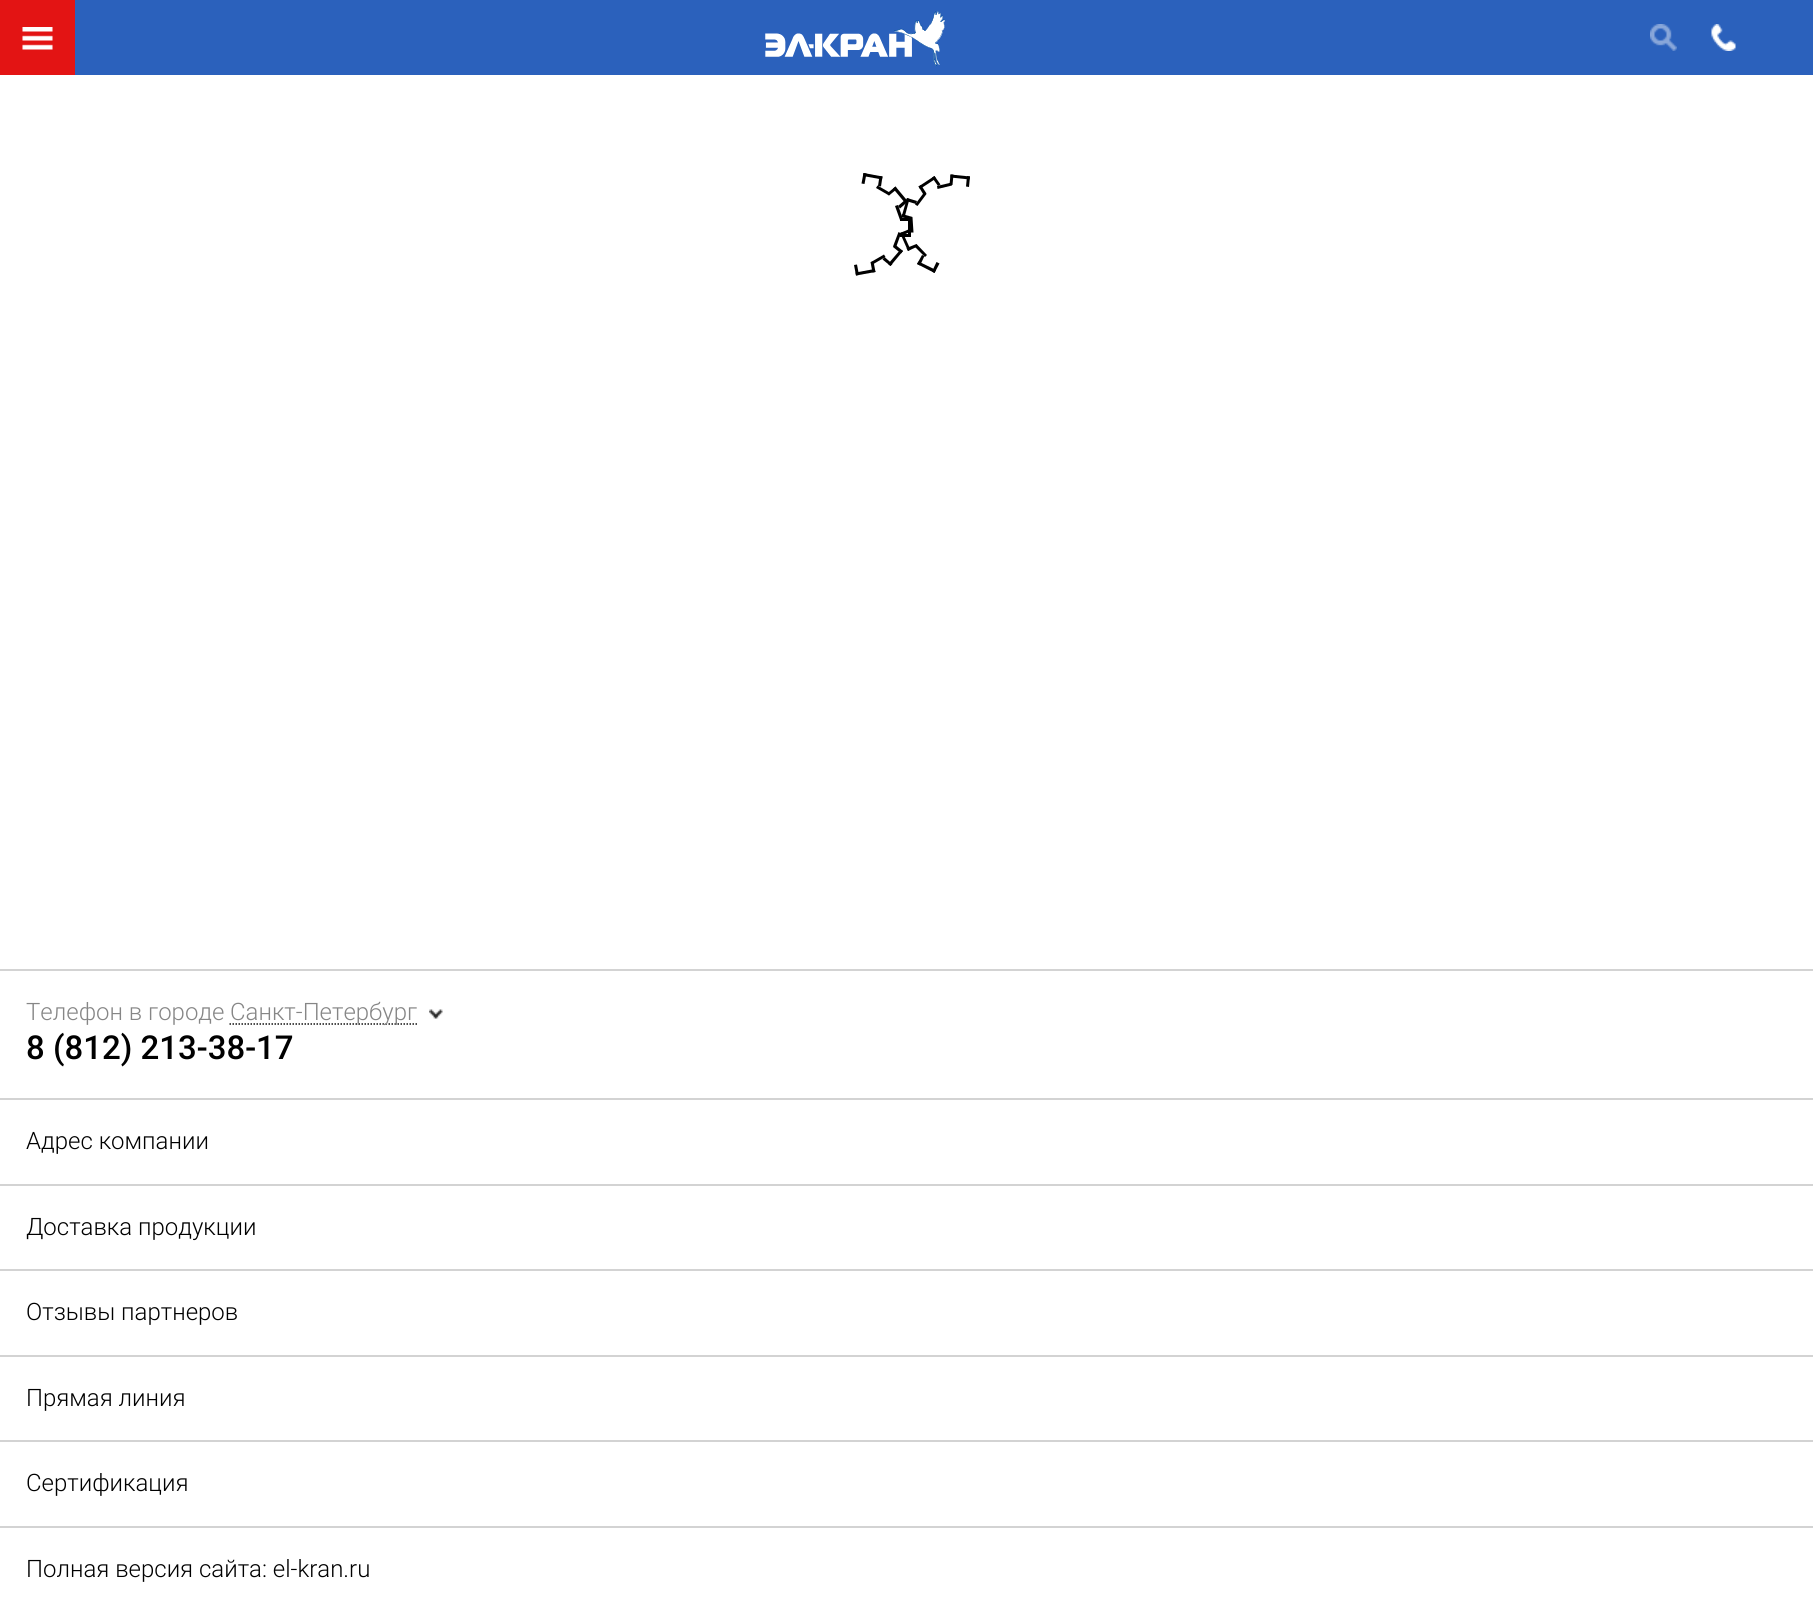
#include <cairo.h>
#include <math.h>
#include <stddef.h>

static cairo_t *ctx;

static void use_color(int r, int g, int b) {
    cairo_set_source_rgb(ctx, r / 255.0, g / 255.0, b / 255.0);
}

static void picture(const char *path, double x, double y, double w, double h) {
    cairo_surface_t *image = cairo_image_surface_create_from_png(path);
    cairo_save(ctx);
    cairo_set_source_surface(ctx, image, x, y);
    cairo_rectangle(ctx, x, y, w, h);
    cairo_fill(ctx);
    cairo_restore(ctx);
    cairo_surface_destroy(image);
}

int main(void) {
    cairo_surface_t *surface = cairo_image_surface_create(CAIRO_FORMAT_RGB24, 1813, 1604);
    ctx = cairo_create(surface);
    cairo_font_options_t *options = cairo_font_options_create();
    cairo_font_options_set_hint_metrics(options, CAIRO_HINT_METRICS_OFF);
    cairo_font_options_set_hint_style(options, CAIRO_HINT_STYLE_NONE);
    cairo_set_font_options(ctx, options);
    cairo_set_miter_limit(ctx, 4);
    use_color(255, 255, 255);
    cairo_paint(ctx);
    use_color(43, 97, 188);
    cairo_rectangle(ctx, 75, 0, 1738, 75);
    cairo_fill(ctx);
    use_color(227, 20, 20);
    cairo_rectangle(ctx, 0, 0, 75, 75);
    cairo_fill(ctx);
    picture("img1.png", 22, 27, 31, 23);
    picture("img2.png", 765, 11, 180, 55);
    picture("img3.png", 1650, 24, 27, 27);
    picture("img4.png", 1711, 24, 25, 27);
    use_color(0, 0, 0);
    cairo_new_path(ctx);
    cairo_move_to(ctx, 861.5, 183.5);
    cairo_line_to(ctx, 863.5, 173);
    cairo_line_to(ctx, 866.5, 173.5);
    cairo_line_to(ctx, 864.5, 184);
    cairo_close_path(ctx);
    cairo_fill(ctx);
    cairo_new_path(ctx);
    cairo_move_to(ctx, 863, 176);
    cairo_line_to(ctx, 863.5, 173);
    cairo_line_to(ctx, 882.5, 176.5);
    cairo_line_to(ctx, 882, 179.5);
    cairo_close_path(ctx);
    cairo_fill(ctx);
    cairo_new_path(ctx);
    cairo_move_to(ctx, 878, 186);
    cairo_line_to(ctx, 879.5, 176);
    cairo_line_to(ctx, 882.5, 176.5);
    cairo_line_to(ctx, 881, 186.5);
    cairo_close_path(ctx);
    cairo_fill(ctx);
    cairo_new_path(ctx);
    cairo_move_to(ctx, 876, 188);
    cairo_line_to(ctx, 877.5, 185.5);
    cairo_line_to(ctx, 890.5, 193);
    cairo_line_to(ctx, 889, 195.5);
    cairo_close_path(ctx);
    cairo_fill(ctx);
    cairo_new_path(ctx);
    cairo_move_to(ctx, 887, 193.5);
    cairo_line_to(ctx, 895.5, 186.5);
    cairo_line_to(ctx, 897, 189);
    cairo_line_to(ctx, 889, 195.5);
    cairo_close_path(ctx);
    cairo_fill(ctx);
    cairo_new_path(ctx);
    cairo_move_to(ctx, 893, 188.5);
    cairo_line_to(ctx, 895.5, 186.5);
    cairo_line_to(ctx, 908, 201.5);
    cairo_line_to(ctx, 905.5, 203.5);
    cairo_close_path(ctx);
    cairo_fill(ctx);
    cairo_new_path(ctx);
    cairo_move_to(ctx, 898, 206);
    cairo_line_to(ctx, 906, 199);
    cairo_line_to(ctx, 908, 201.5);
    cairo_line_to(ctx, 900, 208.5);
    cairo_close_path(ctx);
    cairo_fill(ctx);
    cairo_new_path(ctx);
    cairo_move_to(ctx, 895, 206);
    cairo_line_to(ctx, 898, 205);
    cairo_line_to(ctx, 903, 219);
    cairo_line_to(ctx, 900, 220);
    cairo_close_path(ctx);
    cairo_fill(ctx);
    cairo_rectangle(ctx, 900, 218, 11, 3);
    cairo_fill(ctx);
    cairo_rectangle(ctx, 908, 218, 3, 19);
    cairo_fill(ctx);
    cairo_rectangle(ctx, 900, 234, 11, 3);
    cairo_fill(ctx);
    cairo_new_path(ctx);
    cairo_move_to(ctx, 898.5, 232);
    cairo_line_to(ctx, 901, 233.5);
    cairo_line_to(ctx, 896, 247.5);
    cairo_line_to(ctx, 893, 246.5);
    cairo_close_path(ctx);
    cairo_fill(ctx);
    cairo_new_path(ctx);
    cairo_move_to(ctx, 895, 244.5);
    cairo_line_to(ctx, 903, 251);
    cairo_line_to(ctx, 901, 253.5);
    cairo_line_to(ctx, 893, 247);
    cairo_close_path(ctx);
    cairo_fill(ctx);
    cairo_new_path(ctx);
    cairo_move_to(ctx, 900.5, 249.5);
    cairo_line_to(ctx, 903, 251);
    cairo_line_to(ctx, 890.5, 266);
    cairo_line_to(ctx, 888, 264);
    cairo_close_path(ctx);
    cairo_fill(ctx);
    cairo_new_path(ctx);
    cairo_move_to(ctx, 884.5, 257);
    cairo_line_to(ctx, 892.5, 264);
    cairo_line_to(ctx, 890.5, 266);
    cairo_line_to(ctx, 882.5, 259.5);
    cairo_close_path(ctx);
    cairo_fill(ctx);
    cairo_new_path(ctx);
    cairo_move_to(ctx, 884, 254.5);
    cairo_line_to(ctx, 885.5, 257);
    cairo_line_to(ctx, 872.5, 264.5);
    cairo_line_to(ctx, 871, 262);
    cairo_close_path(ctx);
    cairo_fill(ctx);
    cairo_new_path(ctx);
    cairo_move_to(ctx, 873.5, 261.5);
    cairo_line_to(ctx, 875.5, 272);
    cairo_line_to(ctx, 872.5, 272.5);
    cairo_line_to(ctx, 870.5, 262);
    cairo_close_path(ctx);
    cairo_fill(ctx);
    cairo_new_path(ctx);
    cairo_move_to(ctx, 874.5, 269);
    cairo_line_to(ctx, 875.5, 272);
    cairo_line_to(ctx, 856, 275.5);
    cairo_line_to(ctx, 855.5, 272.5);
    cairo_close_path(ctx);
    cairo_fill(ctx);
    cairo_new_path(ctx);
    cairo_move_to(ctx, 857, 264.5);
    cairo_line_to(ctx, 859, 275);
    cairo_line_to(ctx, 856, 275.5);
    cairo_line_to(ctx, 854, 265);
    cairo_close_path(ctx);
    cairo_fill(ctx);
    cairo_new_path(ctx);
    cairo_move_to(ctx, 939.5, 263.5);
    cairo_line_to(ctx, 934.5, 273);
    cairo_line_to(ctx, 932, 271.5);
    cairo_line_to(ctx, 936.5, 262);
    cairo_close_path(ctx);
    cairo_fill(ctx);
    cairo_new_path(ctx);
    cairo_move_to(ctx, 936, 270);
    cairo_line_to(ctx, 934.5, 273);
    cairo_line_to(ctx, 917, 264);
    cairo_line_to(ctx, 918.5, 261.5);
    cairo_close_path(ctx);
    cairo_fill(ctx);
    cairo_new_path(ctx);
    cairo_move_to(ctx, 924.5, 256);
    cairo_line_to(ctx, 920, 265.5);
    cairo_line_to(ctx, 917, 264);
    cairo_line_to(ctx, 922, 255);
    cairo_close_path(ctx);
    cairo_fill(ctx);
    cairo_new_path(ctx);
    cairo_move_to(ctx, 927, 255);
    cairo_line_to(ctx, 925, 257);
    cairo_line_to(ctx, 914.5, 246.5);
    cairo_line_to(ctx, 916.5, 244);
    cairo_close_path(ctx);
    cairo_fill(ctx);
    cairo_new_path(ctx);
    cairo_move_to(ctx, 917.5, 246.5);
    cairo_line_to(ctx, 908, 251);
    cairo_line_to(ctx, 906.5, 248);
    cairo_line_to(ctx, 916.5, 244);
    cairo_close_path(ctx);
    cairo_fill(ctx);
    cairo_new_path(ctx);
    cairo_move_to(ctx, 910.5, 249.5);
    cairo_line_to(ctx, 908, 251);
    cairo_line_to(ctx, 900, 233);
    cairo_line_to(ctx, 902.5, 232);
    cairo_close_path(ctx);
    cairo_fill(ctx);
    cairo_new_path(ctx);
    cairo_move_to(ctx, 911, 231.5);
    cairo_line_to(ctx, 901, 236);
    cairo_line_to(ctx, 900, 233);
    cairo_line_to(ctx, 909.5, 229);
    cairo_close_path(ctx);
    cairo_fill(ctx);
    cairo_new_path(ctx);
    cairo_move_to(ctx, 913.5, 232.5);
    cairo_line_to(ctx, 910.5, 232.5);
    cairo_line_to(ctx, 909.5, 217.5);
    cairo_line_to(ctx, 912.5, 217.5);
    cairo_close_path(ctx);
    cairo_fill(ctx);
    cairo_new_path(ctx);
    cairo_move_to(ctx, 911.5, 220);
    cairo_line_to(ctx, 901.5, 217);
    cairo_line_to(ctx, 902, 214);
    cairo_line_to(ctx, 912.5, 217);
    cairo_close_path(ctx);
    cairo_fill(ctx);
    cairo_new_path(ctx);
    cairo_move_to(ctx, 904.5, 217.5);
    cairo_line_to(ctx, 901.5, 217);
    cairo_line_to(ctx, 907, 198);
    cairo_line_to(ctx, 909.5, 199);
    cairo_close_path(ctx);
    cairo_fill(ctx);
    cairo_new_path(ctx);
    cairo_move_to(ctx, 916, 204);
    cairo_line_to(ctx, 906, 201);
    cairo_line_to(ctx, 907, 198);
    cairo_line_to(ctx, 917, 201);
    cairo_close_path(ctx);
    cairo_fill(ctx);
    cairo_new_path(ctx);
    cairo_move_to(ctx, 917.5, 206);
    cairo_line_to(ctx, 915, 204.5);
    cairo_line_to(ctx, 924, 192.5);
    cairo_line_to(ctx, 926.5, 194);
    cairo_close_path(ctx);
    cairo_fill(ctx);
    cairo_new_path(ctx);
    cairo_move_to(ctx, 924, 195.5);
    cairo_line_to(ctx, 918.5, 186.5);
    cairo_line_to(ctx, 921, 185);
    cairo_line_to(ctx, 926.5, 193.5);
    cairo_close_path(ctx);
    cairo_fill(ctx);
    cairo_new_path(ctx);
    cairo_move_to(ctx, 920, 189);
    cairo_line_to(ctx, 918.5, 186.5);
    cairo_line_to(ctx, 934.5, 176);
    cairo_line_to(ctx, 936, 178.5);
    cairo_close_path(ctx);
    cairo_fill(ctx);
    cairo_new_path(ctx);
    cairo_move_to(ctx, 938, 186);
    cairo_line_to(ctx, 932, 177.5);
    cairo_line_to(ctx, 934.5, 176);
    cairo_line_to(ctx, 940.5, 184.5);
    cairo_close_path(ctx);
    cairo_fill(ctx);
    cairo_new_path(ctx);
    cairo_move_to(ctx, 937.5, 189);
    cairo_line_to(ctx, 937, 186);
    cairo_line_to(ctx, 951.5, 182.5);
    cairo_line_to(ctx, 952, 185.5);
    cairo_close_path(ctx);
    cairo_fill(ctx);
    cairo_new_path(ctx);
    cairo_move_to(ctx, 949.5, 185);
    cairo_line_to(ctx, 950.5, 174.5);
    cairo_line_to(ctx, 953.5, 174.5);
    cairo_line_to(ctx, 952.5, 185);
    cairo_close_path(ctx);
    cairo_fill(ctx);
    cairo_new_path(ctx);
    cairo_move_to(ctx, 950.5, 177.5);
    cairo_line_to(ctx, 950.5, 174.5);
    cairo_line_to(ctx, 970, 176.5);
    cairo_line_to(ctx, 969.5, 179.5);
    cairo_close_path(ctx);
    cairo_fill(ctx);
    cairo_new_path(ctx);
    cairo_move_to(ctx, 966, 186.5);
    cairo_line_to(ctx, 967, 176);
    cairo_line_to(ctx, 970, 176.5);
    cairo_line_to(ctx, 969, 187);
    cairo_close_path(ctx);
    cairo_fill(ctx);
    use_color(211, 211, 211);
    cairo_rectangle(ctx, 0, 969, 1813, 2);
    cairo_fill(ctx);
    cairo_select_font_face(ctx, "Roboto Light", CAIRO_FONT_SLANT_NORMAL, CAIRO_FONT_WEIGHT_NORMAL);
    cairo_set_font_size(ctx, 24);
    use_color(134, 134, 134);
    cairo_move_to(ctx, 26, 1020);
    cairo_show_text(ctx, "Телефон в городе");
    cairo_new_path(ctx);
    cairo_move_to(ctx, 229.5, 1024);
    cairo_line_to(ctx, 417, 1024);
    use_color(17, 17, 17);
    cairo_set_line_width(ctx, 1.5);
    cairo_set_dash(ctx, (double[]){1.5, 1.5}, 2, 0);
    cairo_stroke(ctx);
    use_color(134, 134, 134);
    cairo_move_to(ctx, 230, 1020);
    cairo_show_text(ctx, "Санкт-Петербург");
    picture("img5.png", 429, 1009, 14, 10);
    cairo_select_font_face(ctx, "Roboto Medium", CAIRO_FONT_SLANT_NORMAL, CAIRO_FONT_WEIGHT_NORMAL);
    cairo_set_font_size(ctx, 33);
    use_color(0, 0, 0);
    cairo_move_to(ctx, 26, 1059);
    cairo_show_text(ctx, "8 (812) 213-38-17");
    use_color(211, 211, 211);
    cairo_rectangle(ctx, 0, 1098, 1813, 2);
    cairo_fill(ctx);
    cairo_select_font_face(ctx, "Roboto Light", CAIRO_FONT_SLANT_NORMAL, CAIRO_FONT_WEIGHT_NORMAL);
    cairo_set_font_size(ctx, 24);
    use_color(0, 0, 0);
    cairo_move_to(ctx, 26, 1149);
    cairo_show_text(ctx, "Адрес компании");
    use_color(211, 211, 211);
    cairo_rectangle(ctx, 0, 1184, 1813, 2);
    cairo_fill(ctx);
    use_color(0, 0, 0);
    cairo_move_to(ctx, 26, 1235);
    cairo_show_text(ctx, "Доставка продукции");
    use_color(211, 211, 211);
    cairo_rectangle(ctx, 0, 1269, 1813, 2);
    cairo_fill(ctx);
    use_color(0, 0, 0);
    cairo_move_to(ctx, 26, 1320);
    cairo_show_text(ctx, "Отзывы партнеров");
    use_color(211, 211, 211);
    cairo_rectangle(ctx, 0, 1355, 1813, 2);
    cairo_fill(ctx);
    use_color(0, 0, 0);
    cairo_move_to(ctx, 26, 1406);
    cairo_show_text(ctx, "Прямая линия");
    use_color(211, 211, 211);
    cairo_rectangle(ctx, 0, 1440, 1813, 2);
    cairo_fill(ctx);
    use_color(0, 0, 0);
    cairo_move_to(ctx, 26, 1491);
    cairo_show_text(ctx, "Сертификация");
    use_color(211, 211, 211);
    cairo_rectangle(ctx, 0, 1526, 1813, 2);
    cairo_fill(ctx);
    use_color(0, 0, 0);
    cairo_move_to(ctx, 26, 1577);
    cairo_show_text(ctx, "Полная версия сайта: el-kran.ru");
    cairo_surface_write_to_png(surface, "result.png");
    cairo_font_options_destroy(options);
    cairo_destroy(ctx);
    cairo_surface_destroy(surface);
    return 0;
}
